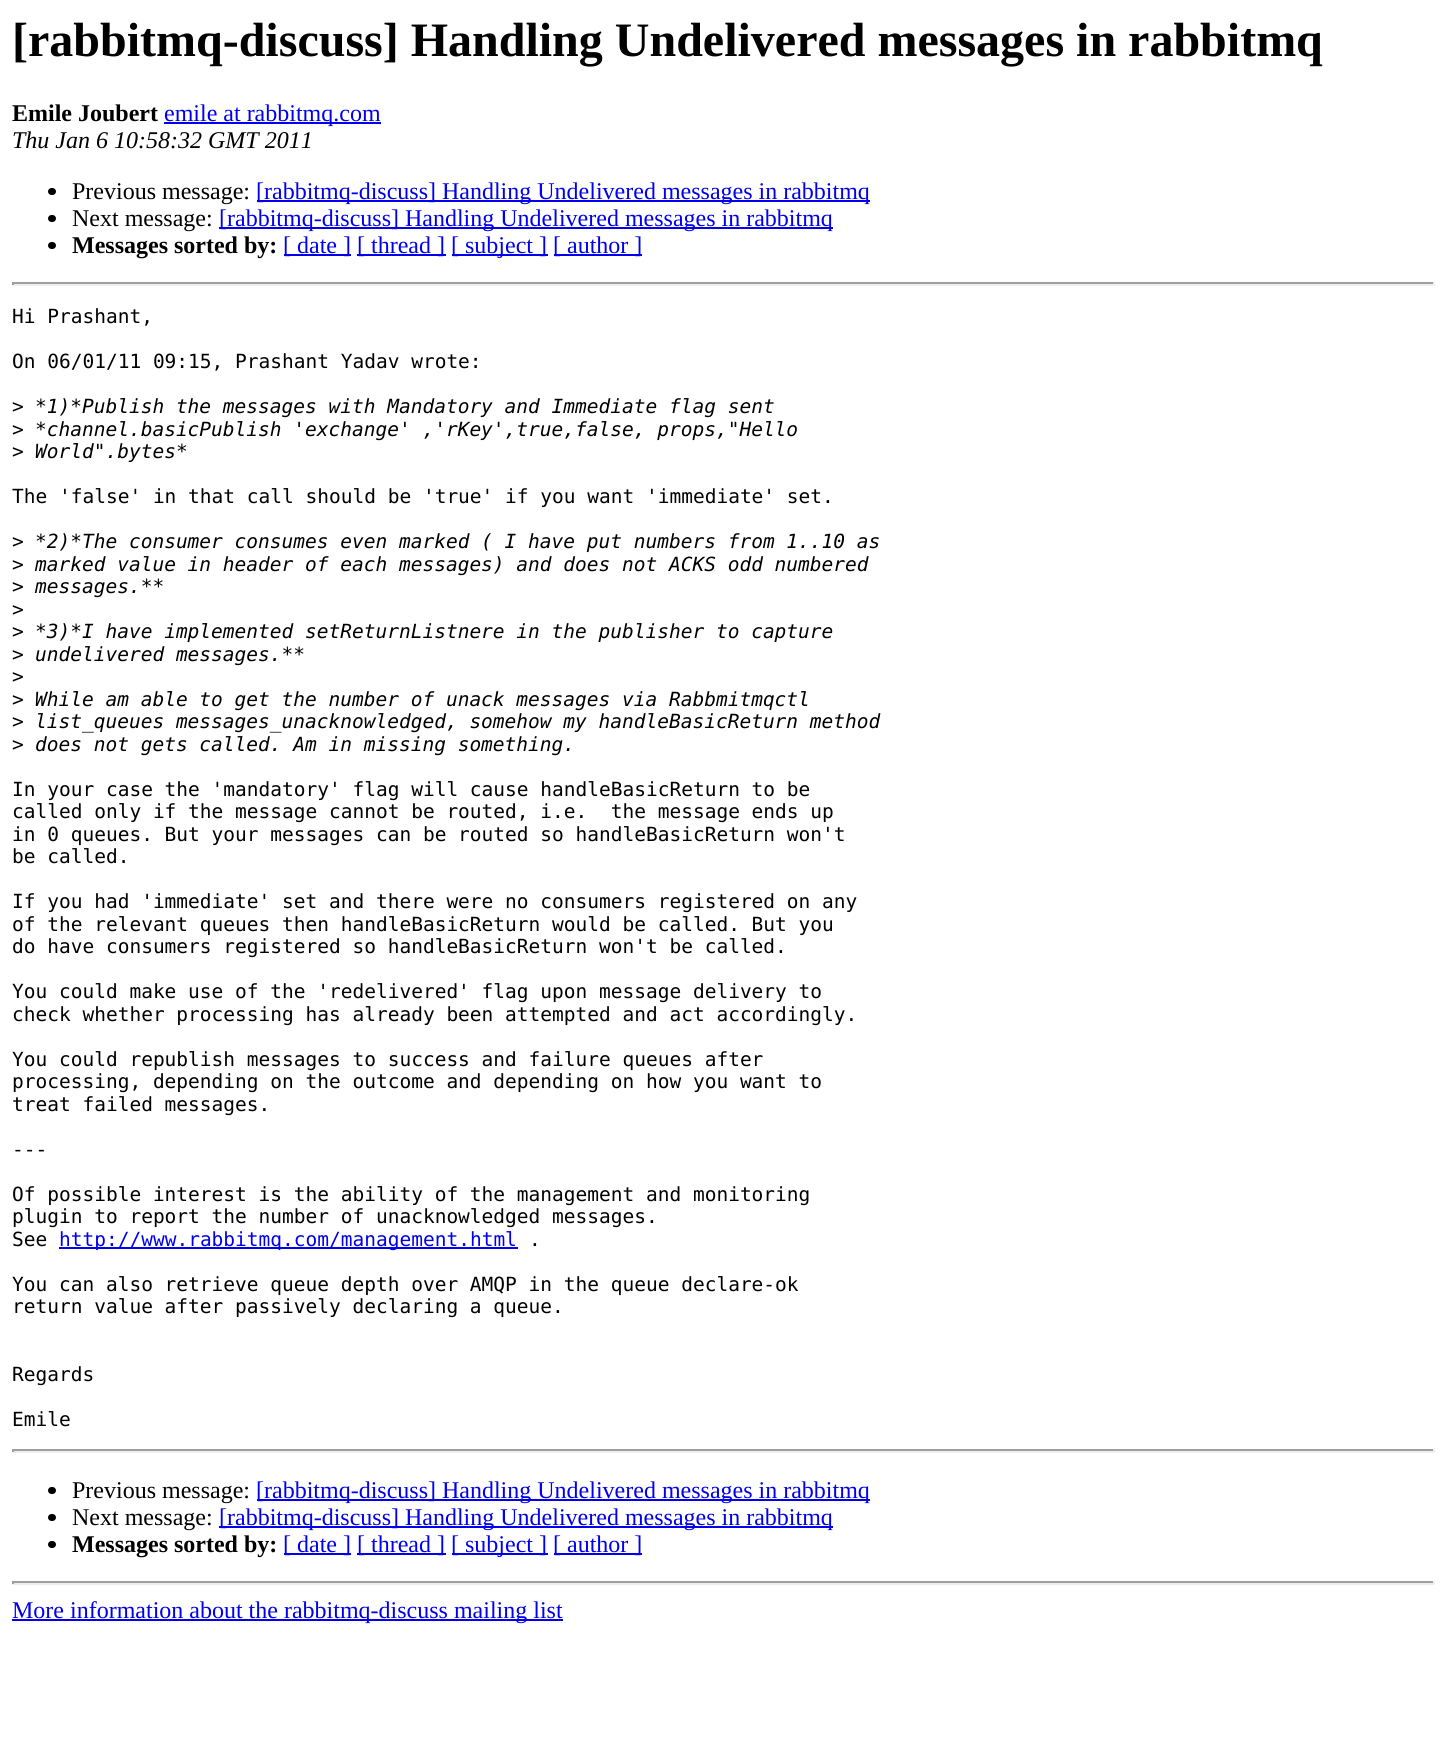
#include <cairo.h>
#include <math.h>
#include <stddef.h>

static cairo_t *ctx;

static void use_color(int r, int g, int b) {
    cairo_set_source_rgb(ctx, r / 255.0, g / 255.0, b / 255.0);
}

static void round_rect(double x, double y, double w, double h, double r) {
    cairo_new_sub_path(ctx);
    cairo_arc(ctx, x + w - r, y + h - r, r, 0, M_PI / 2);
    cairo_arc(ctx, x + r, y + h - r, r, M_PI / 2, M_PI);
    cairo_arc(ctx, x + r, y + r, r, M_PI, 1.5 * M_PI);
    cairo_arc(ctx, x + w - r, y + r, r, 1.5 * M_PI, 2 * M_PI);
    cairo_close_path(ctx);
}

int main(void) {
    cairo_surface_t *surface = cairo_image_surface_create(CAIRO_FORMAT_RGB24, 1446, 1743);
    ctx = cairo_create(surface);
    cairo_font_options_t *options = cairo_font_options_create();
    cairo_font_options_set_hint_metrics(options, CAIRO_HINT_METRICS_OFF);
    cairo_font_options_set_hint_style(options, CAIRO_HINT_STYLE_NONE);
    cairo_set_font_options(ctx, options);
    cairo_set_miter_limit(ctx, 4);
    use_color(255, 255, 255);
    cairo_paint(ctx);
    cairo_select_font_face(ctx, "Liberation Serif", CAIRO_FONT_SLANT_NORMAL, CAIRO_FONT_WEIGHT_BOLD);
    cairo_set_font_size(ctx, 48);
    use_color(0, 0, 0);
    cairo_move_to(ctx, 12, 56);
    cairo_show_text(ctx, "[rabbitmq-discuss] Handling Undelivered messages in rabbitmq");
    cairo_set_font_size(ctx, 24);
    cairo_move_to(ctx, 12, 121);
    cairo_show_text(ctx, "Emile Joubert");
    use_color(0, 0, 238);
    cairo_rectangle(ctx, 164, 122, 217, 2);
    cairo_fill(ctx);
    cairo_select_font_face(ctx, "Liberation Serif", CAIRO_FONT_SLANT_NORMAL, CAIRO_FONT_WEIGHT_NORMAL);
    cairo_move_to(ctx, 164, 121);
    cairo_show_text(ctx, "emile at rabbitmq.com");
    cairo_select_font_face(ctx, "Liberation Serif", CAIRO_FONT_SLANT_ITALIC, CAIRO_FONT_WEIGHT_NORMAL);
    use_color(0, 0, 0);
    cairo_move_to(ctx, 12, 148);
    cairo_show_text(ctx, "Thu Jan 6 10:58:32 GMT 2011");
    round_rect(48, 188, 8, 7, 3.5);
    cairo_fill(ctx);
    cairo_select_font_face(ctx, "Liberation Serif", CAIRO_FONT_SLANT_NORMAL, CAIRO_FONT_WEIGHT_NORMAL);
    cairo_move_to(ctx, 72, 199);
    cairo_show_text(ctx, "Previous message:");
    use_color(0, 0, 238);
    cairo_rectangle(ctx, 257, 200, 613, 2);
    cairo_fill(ctx);
    cairo_move_to(ctx, 256, 199);
    cairo_show_text(ctx, "[rabbitmq-discuss] Handling Undelivered messages in rabbitmq");
    use_color(0, 0, 0);
    round_rect(48, 215, 8, 7, 3.5);
    cairo_fill(ctx);
    cairo_move_to(ctx, 72, 226);
    cairo_show_text(ctx, "Next message:");
    use_color(0, 0, 238);
    cairo_rectangle(ctx, 219, 227, 614, 2);
    cairo_fill(ctx);
    cairo_move_to(ctx, 219, 226);
    cairo_show_text(ctx, "[rabbitmq-discuss] Handling Undelivered messages in rabbitmq");
    use_color(0, 0, 0);
    round_rect(48, 242, 8, 7, 3.5);
    cairo_fill(ctx);
    cairo_select_font_face(ctx, "Liberation Serif", CAIRO_FONT_SLANT_NORMAL, CAIRO_FONT_WEIGHT_BOLD);
    cairo_move_to(ctx, 72, 253);
    cairo_show_text(ctx, "Messages sorted by:");
    use_color(0, 0, 238);
    cairo_rectangle(ctx, 284, 254, 67, 2);
    cairo_fill(ctx);
    cairo_select_font_face(ctx, "Liberation Serif", CAIRO_FONT_SLANT_NORMAL, CAIRO_FONT_WEIGHT_NORMAL);
    cairo_move_to(ctx, 283, 253);
    cairo_show_text(ctx, "[ date ]");
    cairo_rectangle(ctx, 357, 254, 89, 2);
    cairo_fill(ctx);
    cairo_move_to(ctx, 357, 253);
    cairo_show_text(ctx, "[ thread ]");
    cairo_rectangle(ctx, 452, 254, 96, 2);
    cairo_fill(ctx);
    cairo_move_to(ctx, 451, 253);
    cairo_show_text(ctx, "[ subject ]");
    cairo_rectangle(ctx, 554, 254, 88, 2);
    cairo_fill(ctx);
    cairo_move_to(ctx, 553, 253);
    cairo_show_text(ctx, "[ author ]");
    use_color(159, 159, 159);
    cairo_rectangle(ctx, 12, 282, 1422, 2);
    cairo_fill(ctx);
    use_color(238, 238, 238);
    cairo_rectangle(ctx, 1433, 282, 2, 3);
    cairo_fill(ctx);
    cairo_rectangle(ctx, 12, 284, 1422, 2);
    cairo_fill(ctx);
    use_color(159, 159, 159);
    cairo_rectangle(ctx, 12, 282, 2, 3);
    cairo_fill(ctx);
    cairo_select_font_face(ctx, "DejaVu Sans Mono", CAIRO_FONT_SLANT_NORMAL, CAIRO_FONT_WEIGHT_NORMAL);
    cairo_set_font_size(ctx, 19.5);
    use_color(0, 0, 0);
    cairo_move_to(ctx, 12, 323);
    cairo_show_text(ctx, "Hi Prashant,");
    cairo_move_to(ctx, 12, 368);
    cairo_show_text(ctx, "On 06/01/11 09:15, Prashant Yadav wrote:");
    cairo_move_to(ctx, 12, 413);
    cairo_show_text(ctx, ">");
    cairo_select_font_face(ctx, "DejaVu Sans Mono", CAIRO_FONT_SLANT_ITALIC, CAIRO_FONT_WEIGHT_NORMAL);
    cairo_move_to(ctx, 35, 413);
    cairo_show_text(ctx, "*1)*Publish the messages with Mandatory and Immediate flag sent");
    cairo_select_font_face(ctx, "DejaVu Sans Mono", CAIRO_FONT_SLANT_NORMAL, CAIRO_FONT_WEIGHT_NORMAL);
    cairo_move_to(ctx, 12, 436);
    cairo_show_text(ctx, ">");
    cairo_select_font_face(ctx, "DejaVu Sans Mono", CAIRO_FONT_SLANT_ITALIC, CAIRO_FONT_WEIGHT_NORMAL);
    cairo_move_to(ctx, 35, 436);
    cairo_show_text(ctx, "*channel.basicPublish 'exchange' ,'rKey',true,false, props,\"Hello");
    cairo_select_font_face(ctx, "DejaVu Sans Mono", CAIRO_FONT_SLANT_NORMAL, CAIRO_FONT_WEIGHT_NORMAL);
    cairo_move_to(ctx, 12, 458);
    cairo_show_text(ctx, ">");
    cairo_select_font_face(ctx, "DejaVu Sans Mono", CAIRO_FONT_SLANT_ITALIC, CAIRO_FONT_WEIGHT_NORMAL);
    cairo_move_to(ctx, 35, 458);
    cairo_show_text(ctx, "World\".bytes*");
    cairo_select_font_face(ctx, "DejaVu Sans Mono", CAIRO_FONT_SLANT_NORMAL, CAIRO_FONT_WEIGHT_NORMAL);
    cairo_move_to(ctx, 12, 503);
    cairo_show_text(ctx, "The 'false' in that call should be 'true' if you want 'immediate' set.");
    cairo_move_to(ctx, 12, 548);
    cairo_show_text(ctx, ">");
    cairo_select_font_face(ctx, "DejaVu Sans Mono", CAIRO_FONT_SLANT_ITALIC, CAIRO_FONT_WEIGHT_NORMAL);
    cairo_move_to(ctx, 35, 548);
    cairo_show_text(ctx, "*2)*The consumer consumes even marked ( I have put numbers from 1..10 as");
    cairo_select_font_face(ctx, "DejaVu Sans Mono", CAIRO_FONT_SLANT_NORMAL, CAIRO_FONT_WEIGHT_NORMAL);
    cairo_move_to(ctx, 12, 571);
    cairo_show_text(ctx, ">");
    cairo_select_font_face(ctx, "DejaVu Sans Mono", CAIRO_FONT_SLANT_ITALIC, CAIRO_FONT_WEIGHT_NORMAL);
    cairo_move_to(ctx, 35, 571);
    cairo_show_text(ctx, "marked value in header of each messages) and does not ACKS odd numbered");
    cairo_select_font_face(ctx, "DejaVu Sans Mono", CAIRO_FONT_SLANT_NORMAL, CAIRO_FONT_WEIGHT_NORMAL);
    cairo_move_to(ctx, 12, 593);
    cairo_show_text(ctx, ">");
    cairo_select_font_face(ctx, "DejaVu Sans Mono", CAIRO_FONT_SLANT_ITALIC, CAIRO_FONT_WEIGHT_NORMAL);
    cairo_move_to(ctx, 35, 593);
    cairo_show_text(ctx, "messages.**");
    cairo_select_font_face(ctx, "DejaVu Sans Mono", CAIRO_FONT_SLANT_NORMAL, CAIRO_FONT_WEIGHT_NORMAL);
    cairo_move_to(ctx, 12, 616);
    cairo_show_text(ctx, ">");
    cairo_move_to(ctx, 12, 638);
    cairo_show_text(ctx, ">");
    cairo_select_font_face(ctx, "DejaVu Sans Mono", CAIRO_FONT_SLANT_ITALIC, CAIRO_FONT_WEIGHT_NORMAL);
    cairo_move_to(ctx, 35, 638);
    cairo_show_text(ctx, "*3)*I have implemented setReturnListnere in the publisher to capture");
    cairo_select_font_face(ctx, "DejaVu Sans Mono", CAIRO_FONT_SLANT_NORMAL, CAIRO_FONT_WEIGHT_NORMAL);
    cairo_move_to(ctx, 12, 661);
    cairo_show_text(ctx, ">");
    cairo_select_font_face(ctx, "DejaVu Sans Mono", CAIRO_FONT_SLANT_ITALIC, CAIRO_FONT_WEIGHT_NORMAL);
    cairo_move_to(ctx, 35, 661);
    cairo_show_text(ctx, "undelivered messages.**");
    cairo_select_font_face(ctx, "DejaVu Sans Mono", CAIRO_FONT_SLANT_NORMAL, CAIRO_FONT_WEIGHT_NORMAL);
    cairo_move_to(ctx, 12, 683);
    cairo_show_text(ctx, ">");
    cairo_move_to(ctx, 12, 706);
    cairo_show_text(ctx, ">");
    cairo_select_font_face(ctx, "DejaVu Sans Mono", CAIRO_FONT_SLANT_ITALIC, CAIRO_FONT_WEIGHT_NORMAL);
    cairo_move_to(ctx, 35, 706);
    cairo_show_text(ctx, "While am able to get the number of unack messages via Rabbmitmqctl");
    cairo_select_font_face(ctx, "DejaVu Sans Mono", CAIRO_FONT_SLANT_NORMAL, CAIRO_FONT_WEIGHT_NORMAL);
    cairo_move_to(ctx, 12, 728);
    cairo_show_text(ctx, ">");
    cairo_select_font_face(ctx, "DejaVu Sans Mono", CAIRO_FONT_SLANT_ITALIC, CAIRO_FONT_WEIGHT_NORMAL);
    cairo_move_to(ctx, 35, 728);
    cairo_show_text(ctx, "list_queues messages_unacknowledged, somehow my handleBasicReturn method");
    cairo_select_font_face(ctx, "DejaVu Sans Mono", CAIRO_FONT_SLANT_NORMAL, CAIRO_FONT_WEIGHT_NORMAL);
    cairo_move_to(ctx, 12, 751);
    cairo_show_text(ctx, ">");
    cairo_select_font_face(ctx, "DejaVu Sans Mono", CAIRO_FONT_SLANT_ITALIC, CAIRO_FONT_WEIGHT_NORMAL);
    cairo_move_to(ctx, 35, 751);
    cairo_show_text(ctx, "does not gets called. Am in missing something.");
    cairo_select_font_face(ctx, "DejaVu Sans Mono", CAIRO_FONT_SLANT_NORMAL, CAIRO_FONT_WEIGHT_NORMAL);
    cairo_move_to(ctx, 12, 796);
    cairo_show_text(ctx, "In your case the 'mandatory' flag will cause handleBasicReturn to be");
    cairo_move_to(ctx, 12, 818);
    cairo_show_text(ctx, "called only if the message cannot be routed, i.e.  the message ends up");
    cairo_move_to(ctx, 12, 841);
    cairo_show_text(ctx, "in 0 queues. But your messages can be routed so handleBasicReturn won't");
    cairo_move_to(ctx, 12, 863);
    cairo_show_text(ctx, "be called.");
    cairo_move_to(ctx, 12, 908);
    cairo_show_text(ctx, "If you had 'immediate' set and there were no consumers registered on any");
    cairo_move_to(ctx, 12, 931);
    cairo_show_text(ctx, "of the relevant queues then handleBasicReturn would be called. But you");
    cairo_move_to(ctx, 12, 953);
    cairo_show_text(ctx, "do have consumers registered so handleBasicReturn won't be called.");
    cairo_move_to(ctx, 12, 998);
    cairo_show_text(ctx, "You could make use of the 'redelivered' flag upon message delivery to");
    cairo_move_to(ctx, 12, 1021);
    cairo_show_text(ctx, "check whether processing has already been attempted and act accordingly.");
    cairo_move_to(ctx, 12, 1066);
    cairo_show_text(ctx, "You could republish messages to success and failure queues after");
    cairo_move_to(ctx, 12, 1088);
    cairo_show_text(ctx, "processing, depending on the outcome and depending on how you want to");
    cairo_move_to(ctx, 12, 1111);
    cairo_show_text(ctx, "treat failed messages.");
    cairo_move_to(ctx, 12, 1156);
    cairo_show_text(ctx, "---");
    cairo_move_to(ctx, 12, 1201);
    cairo_show_text(ctx, "Of possible interest is the ability of the management and monitoring");
    cairo_move_to(ctx, 12, 1223);
    cairo_show_text(ctx, "plugin to report the number of unacknowledged messages.");
    cairo_move_to(ctx, 12, 1246);
    cairo_show_text(ctx, "See");
    use_color(0, 0, 238);
    cairo_rectangle(ctx, 59, 1247, 459, 2);
    cairo_fill(ctx);
    cairo_move_to(ctx, 59, 1246);
    cairo_show_text(ctx, "http://www.rabbitmq.com/management.html");
    use_color(0, 0, 0);
    cairo_move_to(ctx, 529, 1246);
    cairo_show_text(ctx, ".");
    cairo_move_to(ctx, 12, 1291);
    cairo_show_text(ctx, "You can also retrieve queue depth over AMQP in the queue declare-ok");
    cairo_move_to(ctx, 12, 1313);
    cairo_show_text(ctx, "return value after passively declaring a queue.");
    cairo_move_to(ctx, 12, 1381);
    cairo_show_text(ctx, "Regards");
    cairo_move_to(ctx, 12, 1426);
    cairo_show_text(ctx, "Emile");
    use_color(159, 159, 159);
    cairo_rectangle(ctx, 12, 1449, 1422, 2);
    cairo_fill(ctx);
    use_color(238, 238, 238);
    cairo_rectangle(ctx, 1433, 1449, 2, 3);
    cairo_fill(ctx);
    cairo_rectangle(ctx, 12, 1451, 1422, 2);
    cairo_fill(ctx);
    use_color(159, 159, 159);
    cairo_rectangle(ctx, 12, 1449, 2, 3);
    cairo_fill(ctx);
    use_color(0, 0, 0);
    round_rect(48, 1487, 8, 7, 3.5);
    cairo_fill(ctx);
    cairo_select_font_face(ctx, "Liberation Serif", CAIRO_FONT_SLANT_NORMAL, CAIRO_FONT_WEIGHT_NORMAL);
    cairo_set_font_size(ctx, 24);
    cairo_move_to(ctx, 72, 1498);
    cairo_show_text(ctx, "Previous message:");
    use_color(0, 0, 238);
    cairo_rectangle(ctx, 257, 1499, 613, 2);
    cairo_fill(ctx);
    cairo_move_to(ctx, 256, 1498);
    cairo_show_text(ctx, "[rabbitmq-discuss] Handling Undelivered messages in rabbitmq");
    use_color(0, 0, 0);
    round_rect(48, 1514, 8, 7, 3.5);
    cairo_fill(ctx);
    cairo_move_to(ctx, 72, 1525);
    cairo_show_text(ctx, "Next message:");
    use_color(0, 0, 238);
    cairo_rectangle(ctx, 219, 1526, 614, 2);
    cairo_fill(ctx);
    cairo_move_to(ctx, 219, 1525);
    cairo_show_text(ctx, "[rabbitmq-discuss] Handling Undelivered messages in rabbitmq");
    use_color(0, 0, 0);
    round_rect(48, 1541, 8, 7, 3.5);
    cairo_fill(ctx);
    cairo_select_font_face(ctx, "Liberation Serif", CAIRO_FONT_SLANT_NORMAL, CAIRO_FONT_WEIGHT_BOLD);
    cairo_move_to(ctx, 72, 1552);
    cairo_show_text(ctx, "Messages sorted by:");
    use_color(0, 0, 238);
    cairo_rectangle(ctx, 284, 1553, 67, 2);
    cairo_fill(ctx);
    cairo_select_font_face(ctx, "Liberation Serif", CAIRO_FONT_SLANT_NORMAL, CAIRO_FONT_WEIGHT_NORMAL);
    cairo_move_to(ctx, 283, 1552);
    cairo_show_text(ctx, "[ date ]");
    cairo_rectangle(ctx, 357, 1553, 89, 2);
    cairo_fill(ctx);
    cairo_move_to(ctx, 357, 1552);
    cairo_show_text(ctx, "[ thread ]");
    cairo_rectangle(ctx, 452, 1553, 96, 2);
    cairo_fill(ctx);
    cairo_move_to(ctx, 451, 1552);
    cairo_show_text(ctx, "[ subject ]");
    cairo_rectangle(ctx, 554, 1553, 88, 2);
    cairo_fill(ctx);
    cairo_move_to(ctx, 553, 1552);
    cairo_show_text(ctx, "[ author ]");
    use_color(159, 159, 159);
    cairo_rectangle(ctx, 12, 1581, 1422, 2);
    cairo_fill(ctx);
    use_color(238, 238, 238);
    cairo_rectangle(ctx, 1433, 1581, 2, 3);
    cairo_fill(ctx);
    cairo_rectangle(ctx, 12, 1583, 1422, 2);
    cairo_fill(ctx);
    use_color(159, 159, 159);
    cairo_rectangle(ctx, 12, 1581, 2, 3);
    cairo_fill(ctx);
    use_color(0, 0, 238);
    cairo_rectangle(ctx, 12, 1619, 551, 2);
    cairo_fill(ctx);
    cairo_move_to(ctx, 12, 1618);
    cairo_show_text(ctx, "More information about the rabbitmq-discuss mailing list");
    cairo_surface_write_to_png(surface, "result.png");
    cairo_font_options_destroy(options);
    cairo_destroy(ctx);
    cairo_surface_destroy(surface);
    return 0;
}
